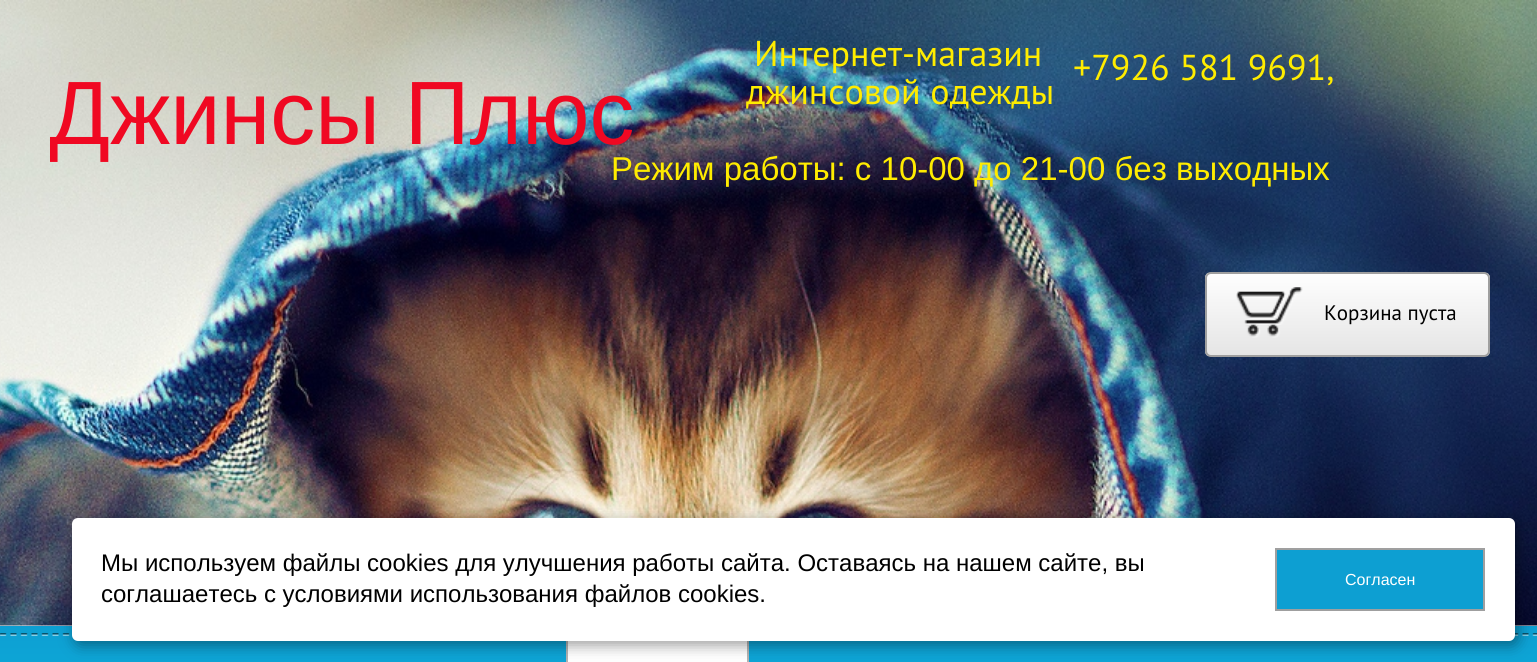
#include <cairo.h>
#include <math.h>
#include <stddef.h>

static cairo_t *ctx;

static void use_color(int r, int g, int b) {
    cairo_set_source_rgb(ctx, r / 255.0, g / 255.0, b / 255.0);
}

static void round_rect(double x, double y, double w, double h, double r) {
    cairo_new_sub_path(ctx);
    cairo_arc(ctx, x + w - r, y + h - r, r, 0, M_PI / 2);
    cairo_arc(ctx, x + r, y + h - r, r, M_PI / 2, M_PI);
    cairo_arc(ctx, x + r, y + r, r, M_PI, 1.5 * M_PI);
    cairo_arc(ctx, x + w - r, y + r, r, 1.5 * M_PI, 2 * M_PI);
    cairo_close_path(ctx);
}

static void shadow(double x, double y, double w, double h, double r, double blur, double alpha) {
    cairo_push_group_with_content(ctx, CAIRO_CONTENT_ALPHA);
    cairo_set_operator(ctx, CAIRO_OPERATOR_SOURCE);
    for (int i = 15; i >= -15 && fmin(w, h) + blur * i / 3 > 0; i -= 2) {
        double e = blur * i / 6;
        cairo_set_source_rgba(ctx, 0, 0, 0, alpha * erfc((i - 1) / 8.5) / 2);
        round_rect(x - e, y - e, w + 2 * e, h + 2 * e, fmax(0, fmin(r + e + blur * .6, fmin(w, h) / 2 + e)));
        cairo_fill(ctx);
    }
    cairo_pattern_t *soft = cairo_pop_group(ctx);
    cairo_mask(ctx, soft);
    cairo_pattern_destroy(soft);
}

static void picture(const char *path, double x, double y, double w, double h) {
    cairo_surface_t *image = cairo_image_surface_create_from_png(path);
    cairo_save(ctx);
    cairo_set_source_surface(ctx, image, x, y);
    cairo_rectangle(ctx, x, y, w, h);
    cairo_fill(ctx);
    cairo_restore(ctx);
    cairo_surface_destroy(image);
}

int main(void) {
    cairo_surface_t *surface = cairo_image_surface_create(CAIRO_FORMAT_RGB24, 1537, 662);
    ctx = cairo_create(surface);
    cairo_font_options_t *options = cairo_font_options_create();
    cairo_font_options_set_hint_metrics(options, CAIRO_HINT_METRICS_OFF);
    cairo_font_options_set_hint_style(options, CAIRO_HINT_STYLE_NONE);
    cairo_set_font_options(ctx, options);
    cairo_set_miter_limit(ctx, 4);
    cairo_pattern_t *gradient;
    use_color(255, 255, 255);
    cairo_paint(ctx);
    gradient = cairo_pattern_create_linear(769, 0, 769, 626);
    cairo_pattern_add_color_stop_rgba(gradient, 0, 0.275, 0.522, 0.945, 1);
    cairo_pattern_add_color_stop_rgba(gradient, 1, 0.965, 0.965, 0.965, 1);
    cairo_set_source(ctx, gradient);
    cairo_pattern_destroy(gradient);
    cairo_rectangle(ctx, 0, 625, 1537, 1);
    cairo_fill(ctx);
    picture("img1.png", 0, 0, 1537, 626);
    cairo_select_font_face(ctx, "PT Sans", CAIRO_FONT_SLANT_NORMAL, CAIRO_FONT_WEIGHT_NORMAL);
    cairo_set_font_size(ctx, 36);
    use_color(255, 236, 0);
    cairo_move_to(ctx, 754, 66);
    cairo_show_text(ctx, "Интернет-магазин");
    cairo_move_to(ctx, 1073, 80);
    cairo_show_text(ctx, "+7926 581 9691,");
    cairo_save(ctx);
    cairo_rectangle(ctx, 50, 0, 1440, 626);
    cairo_clip(ctx);
    cairo_select_font_face(ctx, "Liberation Sans", CAIRO_FONT_SLANT_NORMAL, CAIRO_FONT_WEIGHT_NORMAL);
    cairo_set_font_size(ctx, 90);
    use_color(240, 8, 34);
    cairo_move_to(ctx, 49, 144);
    cairo_show_text(ctx, "Джинсы Плюс");
    cairo_restore(ctx);
    cairo_move_to(ctx, 746, 104);
    cairo_show_text(ctx, "джинсовой одежды");
    cairo_select_font_face(ctx, "Liberation Sans", CAIRO_FONT_SLANT_NORMAL, CAIRO_FONT_WEIGHT_NORMAL);
    cairo_set_font_size(ctx, 33);
    cairo_move_to(ctx, 611, 180);
    cairo_show_text(ctx, "Режим работы: с 10-00 до 21-00 без выходных");
    cairo_save(ctx);
    round_rect(1205, 272, 285, 85, 6);
    cairo_clip(ctx);
    gradient = cairo_pattern_create_linear(1347, 272, 1347, 355);
    cairo_pattern_add_color_stop_rgba(gradient, 0, 1, 1, 1, 1);
    cairo_pattern_add_color_stop_rgba(gradient, 1, 0.898, 0.898, 0.898, 1);
    cairo_set_source(ctx, gradient);
    cairo_pattern_destroy(gradient);
    cairo_rectangle(ctx, 1205, 273, 285, 83);
    cairo_fill(ctx);
    cairo_restore(ctx);
    round_rect(1206, 273, 283, 83, 5);
    use_color(159, 159, 159);
    cairo_stroke(ctx);
    picture("img2.png", 1236, 287, 67, 51);
    cairo_select_font_face(ctx, "PT Sans", CAIRO_FONT_SLANT_NORMAL, CAIRO_FONT_WEIGHT_NORMAL);
    cairo_set_font_size(ctx, 21);
    use_color(0, 0, 0);
    cairo_move_to(ctx, 1324, 320);
    cairo_show_text(ctx, "Корзина пуста");
    gradient = cairo_pattern_create_linear(769, 625, 769, 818);
    cairo_pattern_add_color_stop_rgba(gradient, 0, 0.051, 0.624, 0.824, 1);
    cairo_pattern_add_color_stop_rgba(gradient, 1, 0.055, 0.737, 0.898, 1);
    cairo_set_source(ctx, gradient);
    cairo_pattern_destroy(gradient);
    cairo_rectangle(ctx, 0, 626, 1537, 36);
    cairo_fill(ctx);
    picture("img3.png", 0, 633, 1537, 3);
    use_color(255, 255, 255);
    cairo_rectangle(ctx, 568, 641, 179, 21);
    cairo_fill(ctx);
    cairo_rectangle(ctx, 567, 627, 181, 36);
    use_color(179, 179, 179);
    cairo_stroke(ctx);
    use_color(0, 0, 0);
    shadow(75, 522, 1443, 123, 6, 7.5, 0.4);
    use_color(255, 255, 255);
    round_rect(72, 518, 1443, 123, 6);
    cairo_fill(ctx);
    cairo_select_font_face(ctx, "Liberation Sans", CAIRO_FONT_SLANT_NORMAL, CAIRO_FONT_WEIGHT_NORMAL);
    cairo_set_font_size(ctx, 24);
    use_color(0, 0, 0);
    cairo_move_to(ctx, 101, 571);
    cairo_show_text(ctx, "Мы используем файлы cookies для улучшения работы сайта. Оставаясь на нашем сайте, вы");
    cairo_move_to(ctx, 101, 602);
    cairo_show_text(ctx, "соглашаетесь с условиями использования файлов cookies.");
    use_color(13, 159, 210);
    cairo_rectangle(ctx, 1276, 549, 208, 61);
    cairo_fill_preserve(ctx);
    use_color(159, 159, 159);
    cairo_stroke(ctx);
    cairo_set_font_size(ctx, 16);
    use_color(255, 255, 255);
    cairo_move_to(ctx, 1345, 585);
    cairo_show_text(ctx, "Согласен");
    cairo_surface_write_to_png(surface, "result.png");
    cairo_font_options_destroy(options);
    cairo_destroy(ctx);
    cairo_surface_destroy(surface);
    return 0;
}
